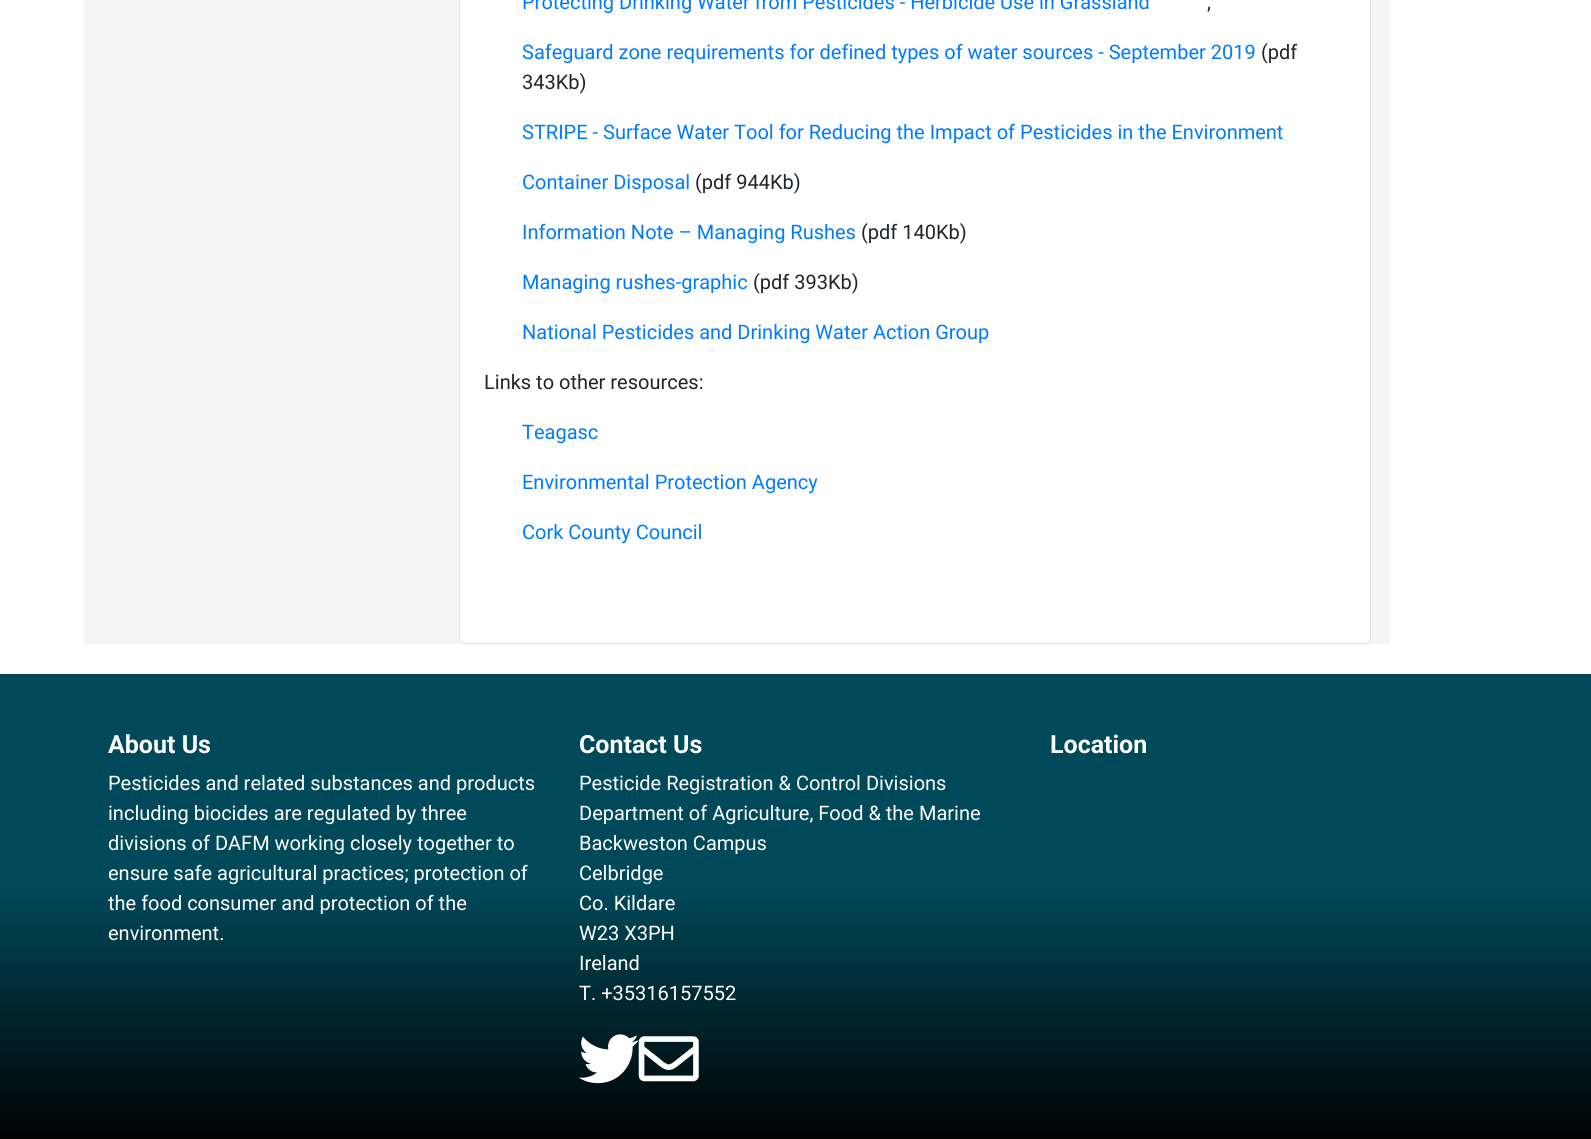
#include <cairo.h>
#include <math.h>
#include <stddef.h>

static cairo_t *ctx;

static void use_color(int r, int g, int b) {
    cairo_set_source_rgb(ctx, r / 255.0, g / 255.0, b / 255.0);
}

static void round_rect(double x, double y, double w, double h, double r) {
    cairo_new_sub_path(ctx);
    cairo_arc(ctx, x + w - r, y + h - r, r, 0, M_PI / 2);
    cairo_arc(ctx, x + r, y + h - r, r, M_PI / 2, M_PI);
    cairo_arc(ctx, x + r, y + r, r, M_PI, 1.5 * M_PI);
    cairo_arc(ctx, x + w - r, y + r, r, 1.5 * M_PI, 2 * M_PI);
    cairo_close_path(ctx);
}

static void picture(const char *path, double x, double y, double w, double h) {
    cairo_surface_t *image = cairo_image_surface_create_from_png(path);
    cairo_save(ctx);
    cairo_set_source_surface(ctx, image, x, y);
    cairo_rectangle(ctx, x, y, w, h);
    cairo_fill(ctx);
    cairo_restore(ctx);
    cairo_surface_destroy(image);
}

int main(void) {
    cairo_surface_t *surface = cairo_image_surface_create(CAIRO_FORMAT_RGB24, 1591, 1139);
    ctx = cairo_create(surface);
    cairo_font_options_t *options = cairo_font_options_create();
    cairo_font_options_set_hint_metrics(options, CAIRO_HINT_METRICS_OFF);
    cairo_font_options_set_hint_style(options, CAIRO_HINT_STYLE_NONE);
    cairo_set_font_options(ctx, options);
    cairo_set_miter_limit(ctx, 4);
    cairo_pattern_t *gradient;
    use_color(255, 255, 255);
    cairo_paint(ctx);
    use_color(245, 245, 245);
    round_rect(84, -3, 356, 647, 2.5);
    cairo_fill(ctx);
    round_rect(440, -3, 950, 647, 2.5);
    cairo_fill(ctx);
    use_color(255, 255, 255);
    round_rect(459, -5, 912, 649, 5);
    cairo_fill(ctx);
    round_rect(459.5, -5.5, 911, 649, 4.5);
    cairo_set_source_rgba(ctx, 0, 0, 0, 0.12);
    cairo_set_line_width(ctx, 1);
    cairo_stroke(ctx);
    cairo_select_font_face(ctx, "Roboto", CAIRO_FONT_SLANT_NORMAL, CAIRO_FONT_WEIGHT_NORMAL);
    cairo_set_font_size(ctx, 20);
    use_color(0, 123, 255);
    cairo_move_to(ctx, 522, 9);
    cairo_show_text(ctx, "Protecting Drinking Water from Pesticides - Herbicide Use in Grassland");
    use_color(33, 37, 41);
    cairo_move_to(ctx, 1207, 9);
    cairo_show_text(ctx, ",");
    use_color(0, 123, 255);
    cairo_move_to(ctx, 522, 59);
    cairo_show_text(ctx, "Safeguard zone requirements for defined types of water sources - September 2019");
    use_color(33, 37, 41);
    cairo_move_to(ctx, 1261, 59);
    cairo_show_text(ctx, "(pdf");
    cairo_move_to(ctx, 522, 89);
    cairo_show_text(ctx, "343Kb)");
    use_color(0, 123, 255);
    cairo_move_to(ctx, 522, 139);
    cairo_show_text(ctx, "STRIPE - Surface Water Tool for Reducing the Impact of Pesticides in the Environment");
    cairo_move_to(ctx, 522, 189);
    cairo_show_text(ctx, "Container Disposal");
    use_color(33, 37, 41);
    cairo_move_to(ctx, 695, 189);
    cairo_show_text(ctx, "(pdf 944Kb)");
    use_color(0, 123, 255);
    cairo_move_to(ctx, 522, 239);
    cairo_show_text(ctx, "Information Note – Managing Rushes");
    use_color(33, 37, 41);
    cairo_move_to(ctx, 861, 239);
    cairo_show_text(ctx, "(pdf 140Kb)");
    use_color(0, 123, 255);
    cairo_move_to(ctx, 522, 289);
    cairo_show_text(ctx, "Managing rushes-graphic");
    use_color(33, 37, 41);
    cairo_move_to(ctx, 753, 289);
    cairo_show_text(ctx, "(pdf 393Kb)");
    use_color(0, 123, 255);
    cairo_move_to(ctx, 522, 339);
    cairo_show_text(ctx, "National Pesticides and Drinking Water Action Group");
    use_color(33, 37, 41);
    cairo_move_to(ctx, 484, 389);
    cairo_show_text(ctx, "Links to other resources:");
    use_color(0, 123, 255);
    cairo_move_to(ctx, 522, 439);
    cairo_show_text(ctx, "Teagasc");
    cairo_move_to(ctx, 522, 489);
    cairo_show_text(ctx, "Environmental Protection Agency");
    cairo_move_to(ctx, 522, 539);
    cairo_show_text(ctx, "Cork County Council");
    gradient = cairo_pattern_create_linear(796, 674, 796, 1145);
    cairo_pattern_add_color_stop_rgba(gradient, 0.45, 0, 0.286, 0.353, 1);
    cairo_pattern_add_color_stop_rgba(gradient, 1, 0, 0, 0, 1);
    cairo_set_source(ctx, gradient);
    cairo_pattern_destroy(gradient);
    cairo_rectangle(ctx, 0, 674, 1591, 465);
    cairo_fill(ctx);
    cairo_select_font_face(ctx, "Roboto", CAIRO_FONT_SLANT_NORMAL, CAIRO_FONT_WEIGHT_BOLD);
    cairo_set_font_size(ctx, 25);
    use_color(255, 255, 255);
    cairo_move_to(ctx, 108, 753);
    cairo_show_text(ctx, "About Us");
    cairo_select_font_face(ctx, "Roboto", CAIRO_FONT_SLANT_NORMAL, CAIRO_FONT_WEIGHT_NORMAL);
    cairo_set_font_size(ctx, 20);
    cairo_move_to(ctx, 108, 790);
    cairo_show_text(ctx, "Pesticides and related substances and products");
    cairo_move_to(ctx, 108, 820);
    cairo_show_text(ctx, "including biocides are regulated by three");
    cairo_move_to(ctx, 108, 850);
    cairo_show_text(ctx, "divisions of DAFM working closely together to");
    cairo_move_to(ctx, 108, 880);
    cairo_show_text(ctx, "ensure safe agricultural practices; protection of");
    cairo_move_to(ctx, 108, 910);
    cairo_show_text(ctx, "the food consumer and protection of the");
    cairo_move_to(ctx, 108, 940);
    cairo_show_text(ctx, "environment.");
    cairo_select_font_face(ctx, "Roboto", CAIRO_FONT_SLANT_NORMAL, CAIRO_FONT_WEIGHT_BOLD);
    cairo_set_font_size(ctx, 25);
    cairo_move_to(ctx, 579, 753);
    cairo_show_text(ctx, "Contact Us");
    cairo_select_font_face(ctx, "Roboto", CAIRO_FONT_SLANT_NORMAL, CAIRO_FONT_WEIGHT_NORMAL);
    cairo_set_font_size(ctx, 20);
    cairo_move_to(ctx, 579, 790);
    cairo_show_text(ctx, "Pesticide Registration & Control Divisions");
    cairo_move_to(ctx, 579, 820);
    cairo_show_text(ctx, "Department of Agriculture, Food & the Marine");
    cairo_move_to(ctx, 579, 850);
    cairo_show_text(ctx, "Backweston Campus");
    cairo_move_to(ctx, 579, 880);
    cairo_show_text(ctx, "Celbridge");
    cairo_move_to(ctx, 579, 910);
    cairo_show_text(ctx, "Co. Kildare");
    cairo_move_to(ctx, 579, 940);
    cairo_show_text(ctx, "W23 X3PH");
    cairo_move_to(ctx, 579, 970);
    cairo_show_text(ctx, "Ireland");
    cairo_move_to(ctx, 579, 1000);
    cairo_show_text(ctx, "T. +35316157552");
    picture("img1.png", 578, 1034, 61, 50);
    picture("img2.png", 638, 1036, 61, 46);
    cairo_select_font_face(ctx, "Roboto", CAIRO_FONT_SLANT_NORMAL, CAIRO_FONT_WEIGHT_BOLD);
    cairo_set_font_size(ctx, 25);
    cairo_move_to(ctx, 1050, 753);
    cairo_show_text(ctx, "Location");
    cairo_surface_write_to_png(surface, "result.png");
    cairo_font_options_destroy(options);
    cairo_destroy(ctx);
    cairo_surface_destroy(surface);
    return 0;
}
